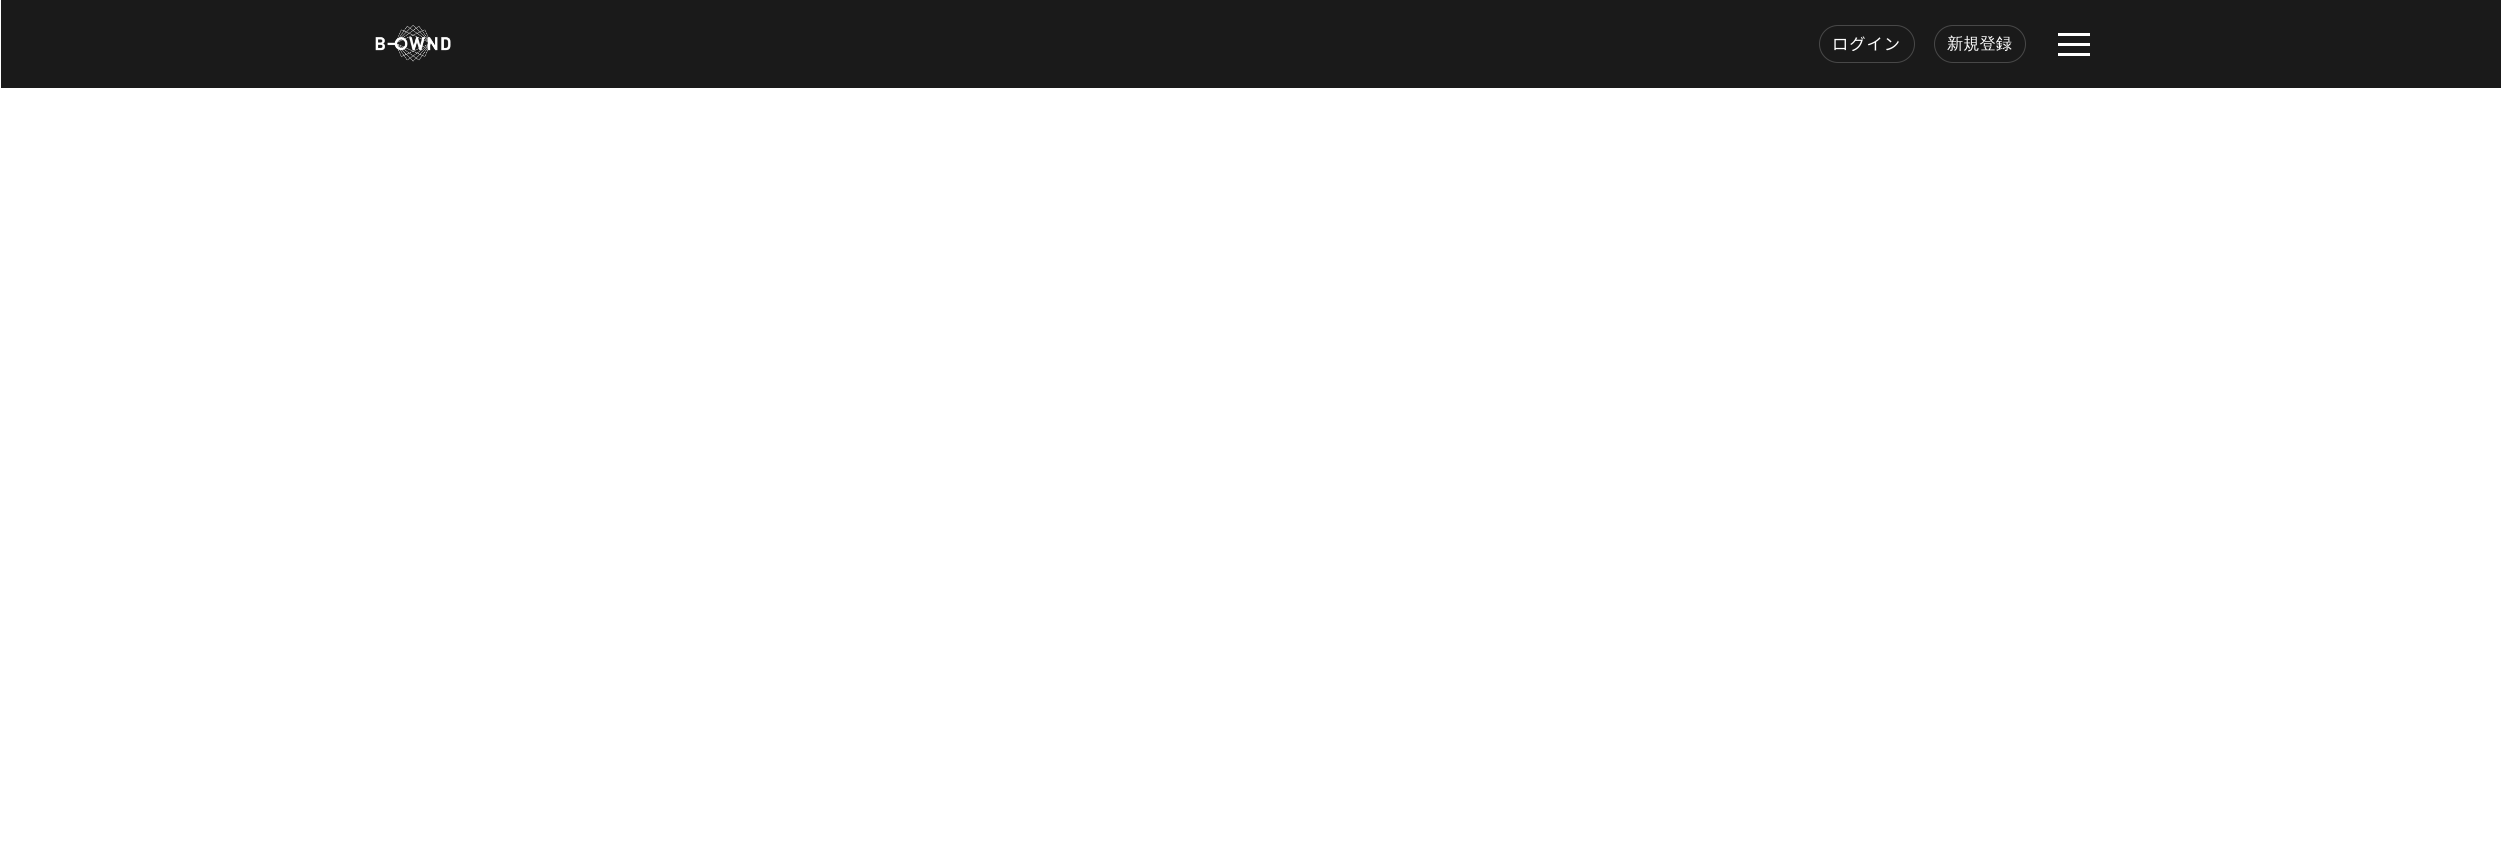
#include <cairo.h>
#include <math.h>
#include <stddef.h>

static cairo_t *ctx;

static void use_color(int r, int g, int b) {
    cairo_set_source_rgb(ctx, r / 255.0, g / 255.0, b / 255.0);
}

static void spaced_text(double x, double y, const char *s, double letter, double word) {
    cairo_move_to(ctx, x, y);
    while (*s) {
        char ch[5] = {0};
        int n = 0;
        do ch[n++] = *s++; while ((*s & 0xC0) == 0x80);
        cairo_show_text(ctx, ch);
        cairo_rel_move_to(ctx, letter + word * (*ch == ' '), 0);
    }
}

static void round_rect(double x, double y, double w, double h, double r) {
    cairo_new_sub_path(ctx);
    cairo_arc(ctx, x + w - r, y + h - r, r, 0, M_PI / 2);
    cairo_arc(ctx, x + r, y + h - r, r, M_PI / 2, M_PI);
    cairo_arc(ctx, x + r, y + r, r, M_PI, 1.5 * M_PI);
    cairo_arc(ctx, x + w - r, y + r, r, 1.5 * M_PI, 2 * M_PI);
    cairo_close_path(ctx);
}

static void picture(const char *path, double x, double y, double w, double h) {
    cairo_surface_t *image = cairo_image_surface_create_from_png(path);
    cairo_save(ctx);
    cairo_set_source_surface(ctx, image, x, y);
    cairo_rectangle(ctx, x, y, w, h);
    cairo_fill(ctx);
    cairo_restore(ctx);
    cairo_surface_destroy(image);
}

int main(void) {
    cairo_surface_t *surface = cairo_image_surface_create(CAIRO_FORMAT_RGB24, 2501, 852);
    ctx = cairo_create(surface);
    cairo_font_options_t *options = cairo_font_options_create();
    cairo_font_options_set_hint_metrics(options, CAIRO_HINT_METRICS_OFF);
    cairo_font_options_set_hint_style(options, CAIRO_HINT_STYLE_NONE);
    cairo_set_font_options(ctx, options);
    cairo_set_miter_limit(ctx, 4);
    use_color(255, 255, 255);
    cairo_paint(ctx);
    use_color(26, 26, 26);
    cairo_rectangle(ctx, 1, 0, 2500, 88);
    cairo_fill(ctx);
    picture("img1.png", 375, 25, 76, 37);
    round_rect(1819.5, 25.5, 95, 37, 18.5);
    use_color(72, 72, 72);
    cairo_set_line_width(ctx, 1);
    cairo_stroke(ctx);
    cairo_select_font_face(ctx, "Noto Sans JP", CAIRO_FONT_SLANT_NORMAL, CAIRO_FONT_WEIGHT_NORMAL);
    cairo_set_font_size(ctx, 16.25);
    use_color(255, 255, 255);
    spaced_text(1832, 50, "ログイン", 1, 0);
    round_rect(1934.5, 25.5, 91, 37, 18.5);
    use_color(72, 72, 72);
    cairo_stroke(ctx);
    cairo_select_font_face(ctx, "WenQuanYi Zen Hei Medium", CAIRO_FONT_SLANT_NORMAL, CAIRO_FONT_WEIGHT_NORMAL);
    use_color(255, 255, 255);
    cairo_move_to(ctx, 1947, 49);
    cairo_show_text(ctx, "新規登録");
    cairo_rectangle(ctx, 2058, 33, 32, 3);
    cairo_fill(ctx);
    cairo_rectangle(ctx, 2058, 43, 32, 3);
    cairo_fill(ctx);
    cairo_rectangle(ctx, 2058, 53, 32, 3);
    cairo_fill(ctx);
    cairo_surface_write_to_png(surface, "result.png");
    cairo_font_options_destroy(options);
    cairo_destroy(ctx);
    cairo_surface_destroy(surface);
    return 0;
}
